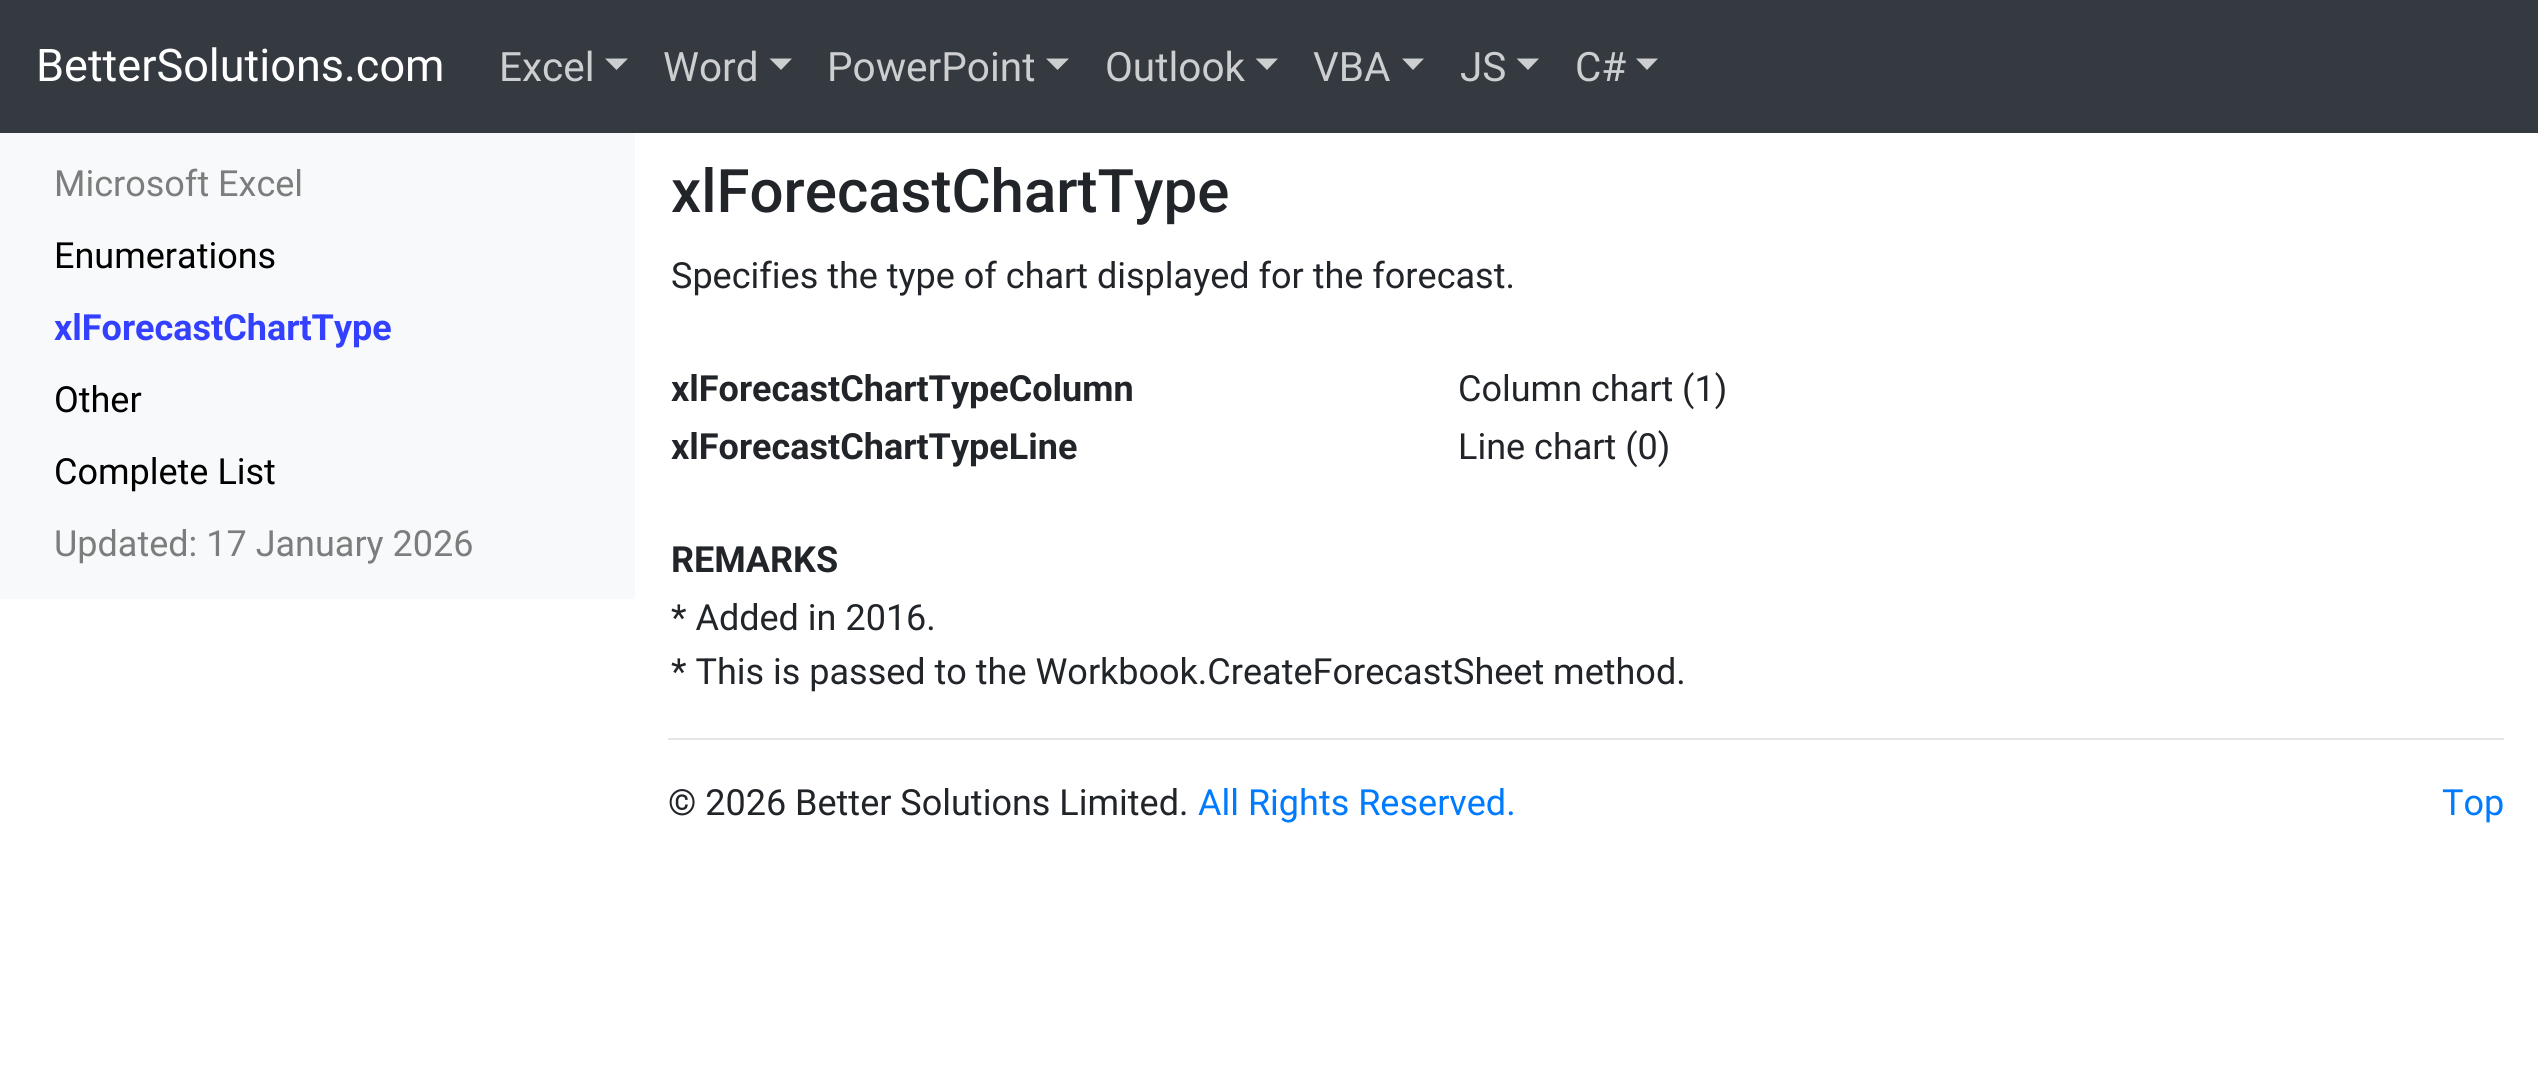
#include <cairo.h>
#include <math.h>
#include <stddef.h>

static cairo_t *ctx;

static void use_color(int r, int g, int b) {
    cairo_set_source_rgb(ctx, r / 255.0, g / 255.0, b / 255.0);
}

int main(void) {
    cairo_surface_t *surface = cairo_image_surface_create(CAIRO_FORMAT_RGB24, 2538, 1076);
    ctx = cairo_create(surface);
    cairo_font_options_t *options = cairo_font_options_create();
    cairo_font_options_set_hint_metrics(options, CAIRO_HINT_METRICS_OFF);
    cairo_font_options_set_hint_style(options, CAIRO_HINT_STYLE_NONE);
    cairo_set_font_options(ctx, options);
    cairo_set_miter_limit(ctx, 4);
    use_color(255, 255, 255);
    cairo_paint(ctx);
    use_color(52, 58, 64);
    cairo_rectangle(ctx, 0, 0, 2538, 133);
    cairo_fill(ctx);
    cairo_select_font_face(ctx, "Roboto", CAIRO_FONT_SLANT_NORMAL, CAIRO_FONT_WEIGHT_NORMAL);
    cairo_set_font_size(ctx, 45);
    use_color(255, 255, 255);
    cairo_move_to(ctx, 36, 81);
    cairo_show_text(ctx, "BetterSolutions.com");
    cairo_set_font_size(ctx, 40.5);
    use_color(204, 206, 207);
    cairo_move_to(ctx, 499, 81);
    cairo_show_text(ctx, "Excel");
    cairo_new_path(ctx);
    cairo_move_to(ctx, 605, 58.5);
    cairo_line_to(ctx, 628, 58.5);
    cairo_line_to(ctx, 616.5, 70);
    cairo_close_path(ctx);
    cairo_fill(ctx);
    cairo_move_to(ctx, 663, 81);
    cairo_show_text(ctx, "Word");
    cairo_new_path(ctx);
    cairo_move_to(ctx, 769.5, 58.5);
    cairo_line_to(ctx, 792, 58.5);
    cairo_line_to(ctx, 781, 70);
    cairo_close_path(ctx);
    cairo_fill(ctx);
    cairo_move_to(ctx, 827, 81);
    cairo_show_text(ctx, "PowerPoint");
    cairo_new_path(ctx);
    cairo_move_to(ctx, 1046, 58.5);
    cairo_line_to(ctx, 1069, 58.5);
    cairo_line_to(ctx, 1057.5, 70);
    cairo_close_path(ctx);
    cairo_fill(ctx);
    cairo_move_to(ctx, 1105, 81);
    cairo_show_text(ctx, "Outlook");
    cairo_new_path(ctx);
    cairo_move_to(ctx, 1255.5, 58.5);
    cairo_line_to(ctx, 1278, 58.5);
    cairo_line_to(ctx, 1267, 70);
    cairo_close_path(ctx);
    cairo_fill(ctx);
    cairo_move_to(ctx, 1313, 81);
    cairo_show_text(ctx, "VBA");
    cairo_new_path(ctx);
    cairo_move_to(ctx, 1402, 58.5);
    cairo_line_to(ctx, 1424, 58.5);
    cairo_line_to(ctx, 1413, 70);
    cairo_close_path(ctx);
    cairo_fill(ctx);
    cairo_move_to(ctx, 1460, 81);
    cairo_show_text(ctx, "JS");
    cairo_new_path(ctx);
    cairo_move_to(ctx, 1516.5, 58.5);
    cairo_line_to(ctx, 1539, 58.5);
    cairo_line_to(ctx, 1528, 70);
    cairo_close_path(ctx);
    cairo_fill(ctx);
    cairo_move_to(ctx, 1575, 81);
    cairo_show_text(ctx, "C#");
    cairo_new_path(ctx);
    cairo_move_to(ctx, 1636, 58.5);
    cairo_line_to(ctx, 1658, 58.5);
    cairo_line_to(ctx, 1647, 70);
    cairo_close_path(ctx);
    cairo_fill(ctx);
    use_color(248, 249, 250);
    cairo_rectangle(ctx, 0, 133, 635, 466);
    cairo_fill(ctx);
    cairo_set_font_size(ctx, 36);
    use_color(124, 125, 125);
    cairo_move_to(ctx, 54, 196);
    cairo_show_text(ctx, "Microsoft Excel");
    use_color(0, 0, 0);
    cairo_move_to(ctx, 54, 268);
    cairo_show_text(ctx, "Enumerations");
    cairo_select_font_face(ctx, "Roboto", CAIRO_FONT_SLANT_NORMAL, CAIRO_FONT_WEIGHT_BOLD);
    use_color(51, 64, 255);
    cairo_move_to(ctx, 54, 340);
    cairo_show_text(ctx, "xlForecastChartType");
    cairo_select_font_face(ctx, "Roboto", CAIRO_FONT_SLANT_NORMAL, CAIRO_FONT_WEIGHT_NORMAL);
    use_color(0, 0, 0);
    cairo_move_to(ctx, 54, 412);
    cairo_show_text(ctx, "Other");
    cairo_move_to(ctx, 54, 484);
    cairo_show_text(ctx, "Complete List");
    use_color(124, 125, 125);
    cairo_move_to(ctx, 54, 556);
    cairo_show_text(ctx, "Updated: 17 January 2026");
    cairo_select_font_face(ctx, "Roboto Medium", CAIRO_FONT_SLANT_NORMAL, CAIRO_FONT_WEIGHT_NORMAL);
    cairo_set_font_size(ctx, 60);
    use_color(33, 37, 41);
    cairo_move_to(ctx, 671, 212);
    cairo_show_text(ctx, "xlForecastChartType");
    cairo_select_font_face(ctx, "Roboto", CAIRO_FONT_SLANT_NORMAL, CAIRO_FONT_WEIGHT_NORMAL);
    cairo_set_font_size(ctx, 36);
    cairo_move_to(ctx, 671, 288);
    cairo_show_text(ctx, "Specifies the type of chart displayed for the forecast.");
    cairo_select_font_face(ctx, "Roboto", CAIRO_FONT_SLANT_NORMAL, CAIRO_FONT_WEIGHT_BOLD);
    cairo_move_to(ctx, 671, 401);
    cairo_show_text(ctx, "xlForecastChartTypeColumn");
    cairo_select_font_face(ctx, "Roboto", CAIRO_FONT_SLANT_NORMAL, CAIRO_FONT_WEIGHT_NORMAL);
    cairo_move_to(ctx, 1458, 401);
    cairo_show_text(ctx, "Column chart (1)");
    cairo_select_font_face(ctx, "Roboto", CAIRO_FONT_SLANT_NORMAL, CAIRO_FONT_WEIGHT_BOLD);
    cairo_move_to(ctx, 671, 459);
    cairo_show_text(ctx, "xlForecastChartTypeLine");
    cairo_select_font_face(ctx, "Roboto", CAIRO_FONT_SLANT_NORMAL, CAIRO_FONT_WEIGHT_NORMAL);
    cairo_move_to(ctx, 1458, 459);
    cairo_show_text(ctx, "Line chart (0)");
    cairo_select_font_face(ctx, "Roboto", CAIRO_FONT_SLANT_NORMAL, CAIRO_FONT_WEIGHT_BOLD);
    cairo_move_to(ctx, 671, 572);
    cairo_show_text(ctx, "REMARKS");
    cairo_select_font_face(ctx, "Roboto", CAIRO_FONT_SLANT_NORMAL, CAIRO_FONT_WEIGHT_NORMAL);
    cairo_move_to(ctx, 671, 630);
    cairo_show_text(ctx, "* Added in 2016.");
    cairo_move_to(ctx, 671, 684);
    cairo_show_text(ctx, "* This is passed to the Workbook.CreateForecastSheet method.");
    use_color(230, 230, 230);
    cairo_rectangle(ctx, 668, 738, 1836, 2);
    cairo_fill(ctx);
    use_color(33, 37, 41);
    cairo_move_to(ctx, 668, 815);
    cairo_show_text(ctx, "© 2026 Better Solutions Limited.");
    use_color(0, 123, 255);
    cairo_move_to(ctx, 1198, 815);
    cairo_show_text(ctx, "All Rights Reserved.");
    cairo_move_to(ctx, 2442, 815);
    cairo_show_text(ctx, "Top");
    cairo_surface_write_to_png(surface, "result.png");
    cairo_font_options_destroy(options);
    cairo_destroy(ctx);
    cairo_surface_destroy(surface);
    return 0;
}
